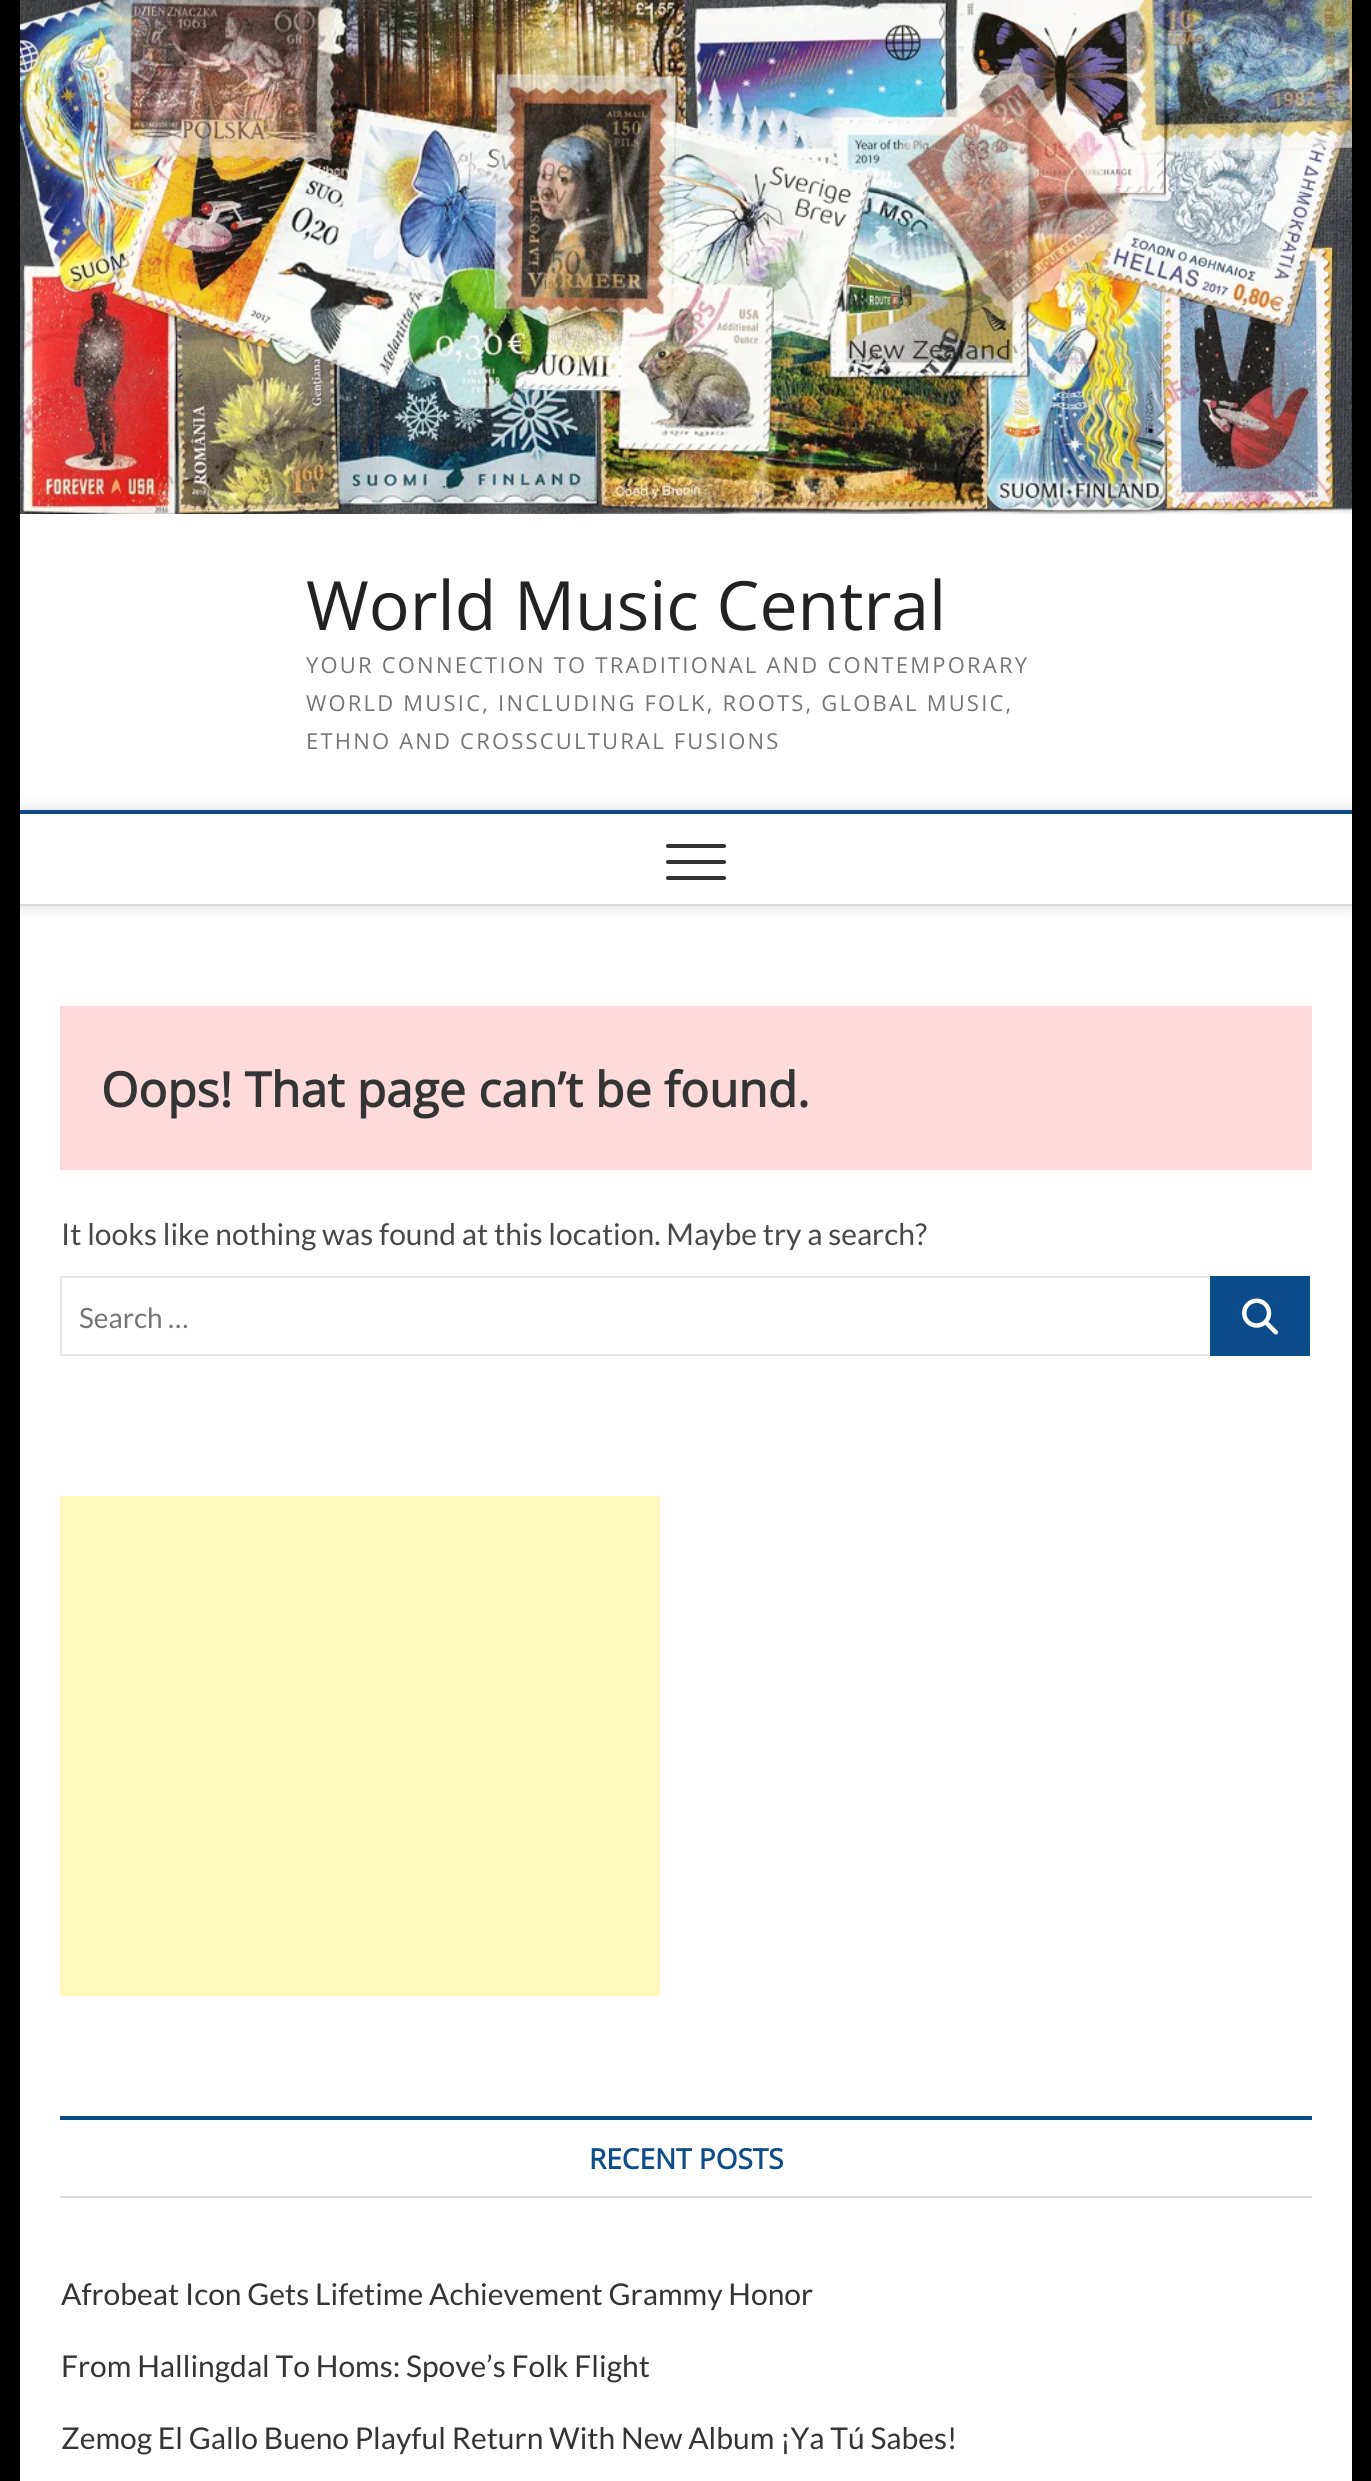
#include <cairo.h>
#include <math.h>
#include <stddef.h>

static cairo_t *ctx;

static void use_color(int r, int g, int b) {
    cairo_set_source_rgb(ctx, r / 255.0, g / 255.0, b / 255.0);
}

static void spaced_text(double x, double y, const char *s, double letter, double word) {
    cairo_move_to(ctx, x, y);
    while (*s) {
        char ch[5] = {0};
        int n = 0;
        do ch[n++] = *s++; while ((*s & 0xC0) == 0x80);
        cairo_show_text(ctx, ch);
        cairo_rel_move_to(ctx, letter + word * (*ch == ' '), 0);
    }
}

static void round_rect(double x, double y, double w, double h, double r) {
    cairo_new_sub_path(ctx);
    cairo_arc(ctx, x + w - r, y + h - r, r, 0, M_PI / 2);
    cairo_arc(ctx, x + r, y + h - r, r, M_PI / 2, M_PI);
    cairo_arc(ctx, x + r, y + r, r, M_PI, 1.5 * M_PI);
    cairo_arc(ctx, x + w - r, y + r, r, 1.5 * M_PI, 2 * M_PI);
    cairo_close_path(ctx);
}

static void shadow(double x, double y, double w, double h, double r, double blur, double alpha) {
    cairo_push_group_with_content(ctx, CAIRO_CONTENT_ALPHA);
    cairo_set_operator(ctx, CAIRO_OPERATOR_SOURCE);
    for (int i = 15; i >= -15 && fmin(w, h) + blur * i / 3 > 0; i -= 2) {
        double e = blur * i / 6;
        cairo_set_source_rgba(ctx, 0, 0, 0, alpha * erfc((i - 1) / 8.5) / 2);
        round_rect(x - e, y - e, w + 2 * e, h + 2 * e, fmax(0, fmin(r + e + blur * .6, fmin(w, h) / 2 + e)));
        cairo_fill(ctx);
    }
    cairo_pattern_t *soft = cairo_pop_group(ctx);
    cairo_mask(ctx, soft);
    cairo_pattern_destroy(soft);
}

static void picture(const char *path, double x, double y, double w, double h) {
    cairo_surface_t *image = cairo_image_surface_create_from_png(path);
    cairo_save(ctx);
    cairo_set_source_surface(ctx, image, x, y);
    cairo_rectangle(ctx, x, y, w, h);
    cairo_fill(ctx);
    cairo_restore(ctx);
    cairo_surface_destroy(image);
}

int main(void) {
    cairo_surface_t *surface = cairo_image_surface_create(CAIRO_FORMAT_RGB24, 1371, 2481);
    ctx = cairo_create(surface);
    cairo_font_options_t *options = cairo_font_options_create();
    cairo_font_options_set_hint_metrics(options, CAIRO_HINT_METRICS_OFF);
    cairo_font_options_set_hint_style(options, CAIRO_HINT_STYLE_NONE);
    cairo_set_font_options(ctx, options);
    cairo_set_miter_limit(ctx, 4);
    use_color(0, 0, 0);
    cairo_paint(ctx);
    use_color(255, 255, 255);
    cairo_rectangle(ctx, 20, 514, 1332, 1967);
    cairo_fill(ctx);
    picture("img1.png", 20, 0, 1332, 514);
    cairo_select_font_face(ctx, "Open Sans", CAIRO_FONT_SLANT_NORMAL, CAIRO_FONT_WEIGHT_NORMAL);
    cairo_set_font_size(ctx, 68);
    use_color(34, 34, 34);
    cairo_move_to(ctx, 306, 630);
    cairo_show_text(ctx, "World Music Central");
    cairo_set_font_size(ctx, 22);
    use_color(116, 116, 116);
    spaced_text(306, 673, "YOUR CONNECTION TO TRADITIONAL AND CONTEMPORARY", 2.2, 0);
    spaced_text(306, 711, "WORLD MUSIC, INCLUDING FOLK, ROOTS, GLOBAL MUSIC,", 2.2, 0);
    spaced_text(306, 749, "ETHNO AND CROSSCULTURAL FUSIONS", 2.2, 0);
    cairo_save(ctx);
    cairo_rectangle(ctx, 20, 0, 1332, 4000);
    cairo_clip(ctx);
    cairo_set_fill_rule(ctx, CAIRO_FILL_RULE_EVEN_ODD);
    cairo_new_path(ctx);
    cairo_move_to(ctx, 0, 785);
    cairo_line_to(ctx, 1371, 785);
    cairo_line_to(ctx, 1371, 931);
    cairo_line_to(ctx, 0, 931);
    cairo_close_path(ctx);
    cairo_move_to(ctx, 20, 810);
    cairo_line_to(ctx, 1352, 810);
    cairo_line_to(ctx, 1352, 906);
    cairo_line_to(ctx, 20, 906);
    cairo_close_path(ctx);
    cairo_clip(ctx);
    use_color(0, 0, 0);
    shadow(20, 810, 1332, 96, 0, 8, 0.15);
    cairo_restore(ctx);
    use_color(12, 76, 138);
    cairo_rectangle(ctx, 20, 810, 1332, 4);
    cairo_fill(ctx);
    use_color(221, 221, 221);
    cairo_rectangle(ctx, 20, 904, 1332, 2);
    cairo_fill(ctx);
    use_color(51, 51, 51);
    round_rect(666, 860, 60, 4, 2);
    cairo_fill(ctx);
    round_rect(666, 844, 60, 4, 2);
    cairo_fill(ctx);
    round_rect(666, 876, 60, 4, 2);
    cairo_fill(ctx);
    use_color(253, 219, 221);
    cairo_rectangle(ctx, 60, 1006, 1252, 164);
    cairo_fill(ctx);
    cairo_select_font_face(ctx, "Open Sans", CAIRO_FONT_SLANT_NORMAL, CAIRO_FONT_WEIGHT_BOLD);
    cairo_set_font_size(ctx, 48);
    use_color(52, 52, 52);
    cairo_move_to(ctx, 101, 1107);
    cairo_show_text(ctx, "Oops! That page can’t be found.");
    cairo_select_font_face(ctx, "Lato", CAIRO_FONT_SLANT_NORMAL, CAIRO_FONT_WEIGHT_NORMAL);
    cairo_set_font_size(ctx, 30);
    use_color(72, 72, 72);
    cairo_move_to(ctx, 61, 1245);
    cairo_show_text(ctx, "It looks like nothing was found at this location. Maybe try a search?");
    cairo_rectangle(ctx, 61, 1277, 1150, 78);
    use_color(230, 230, 230);
    cairo_stroke(ctx);
    cairo_set_font_size(ctx, 28);
    use_color(116, 116, 116);
    cairo_move_to(ctx, 79, 1328);
    cairo_show_text(ctx, "Search …");
    use_color(12, 76, 138);
    cairo_rectangle(ctx, 1210, 1276, 100, 80);
    cairo_fill(ctx);
    picture("img2.png", 1242, 1298, 36, 37);
    use_color(255, 249, 192);
    cairo_rectangle(ctx, 60, 1496, 600, 500);
    cairo_fill(ctx);
    use_color(12, 76, 138);
    cairo_rectangle(ctx, 60, 2116, 1252, 4);
    cairo_fill(ctx);
    use_color(221, 221, 221);
    cairo_rectangle(ctx, 60, 2196, 1252, 2);
    cairo_fill(ctx);
    cairo_select_font_face(ctx, "Open Sans", CAIRO_FONT_SLANT_NORMAL, CAIRO_FONT_WEIGHT_BOLD);
    use_color(12, 76, 138);
    cairo_move_to(ctx, 589, 2169);
    cairo_show_text(ctx, "RECENT POSTS");
    cairo_select_font_face(ctx, "Lato", CAIRO_FONT_SLANT_NORMAL, CAIRO_FONT_WEIGHT_NORMAL);
    cairo_set_font_size(ctx, 30);
    use_color(52, 52, 52);
    cairo_move_to(ctx, 61, 2305);
    cairo_show_text(ctx, "Afrobeat Icon Gets Lifetime Achievement Grammy Honor");
    cairo_move_to(ctx, 61, 2377);
    cairo_show_text(ctx, "From Hallingdal To Homs: Spove’s Folk Flight");
    cairo_move_to(ctx, 61, 2449);
    cairo_show_text(ctx, "Zemog El Gallo Bueno Playful Return With New Album ¡Ya Tú Sabes!");
    cairo_surface_write_to_png(surface, "result.png");
    cairo_font_options_destroy(options);
    cairo_destroy(ctx);
    cairo_surface_destroy(surface);
    return 0;
}
